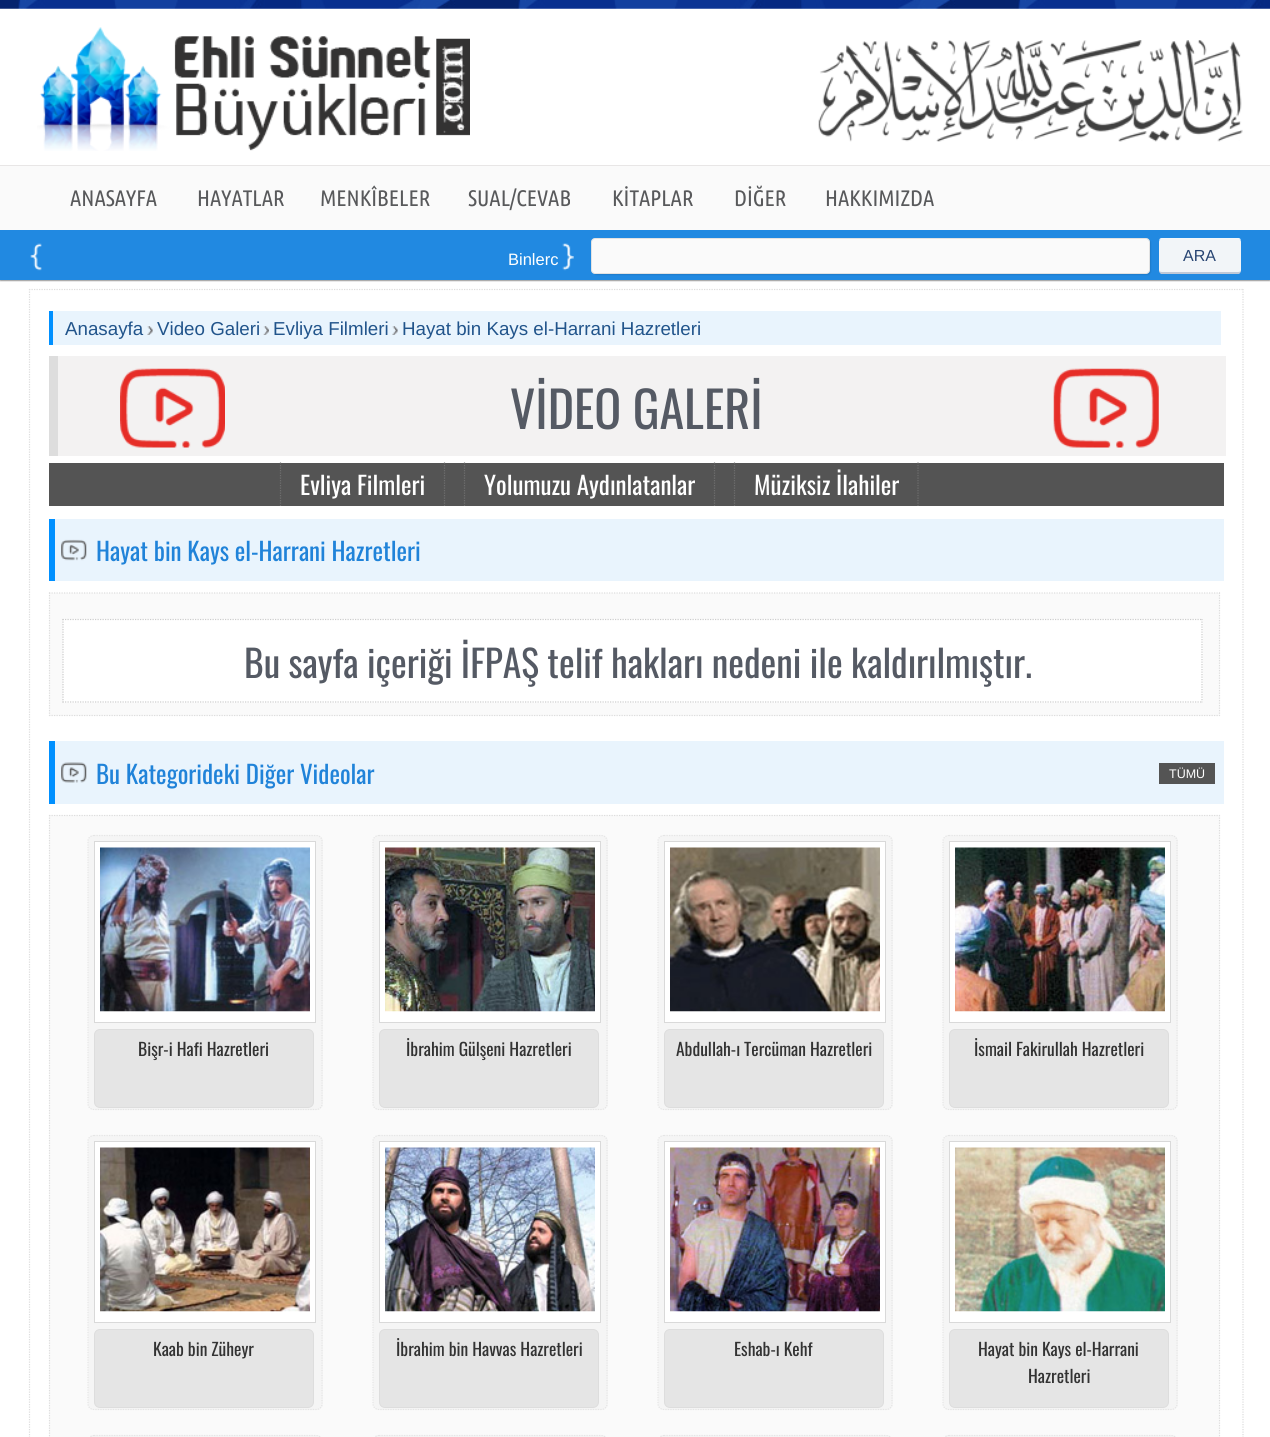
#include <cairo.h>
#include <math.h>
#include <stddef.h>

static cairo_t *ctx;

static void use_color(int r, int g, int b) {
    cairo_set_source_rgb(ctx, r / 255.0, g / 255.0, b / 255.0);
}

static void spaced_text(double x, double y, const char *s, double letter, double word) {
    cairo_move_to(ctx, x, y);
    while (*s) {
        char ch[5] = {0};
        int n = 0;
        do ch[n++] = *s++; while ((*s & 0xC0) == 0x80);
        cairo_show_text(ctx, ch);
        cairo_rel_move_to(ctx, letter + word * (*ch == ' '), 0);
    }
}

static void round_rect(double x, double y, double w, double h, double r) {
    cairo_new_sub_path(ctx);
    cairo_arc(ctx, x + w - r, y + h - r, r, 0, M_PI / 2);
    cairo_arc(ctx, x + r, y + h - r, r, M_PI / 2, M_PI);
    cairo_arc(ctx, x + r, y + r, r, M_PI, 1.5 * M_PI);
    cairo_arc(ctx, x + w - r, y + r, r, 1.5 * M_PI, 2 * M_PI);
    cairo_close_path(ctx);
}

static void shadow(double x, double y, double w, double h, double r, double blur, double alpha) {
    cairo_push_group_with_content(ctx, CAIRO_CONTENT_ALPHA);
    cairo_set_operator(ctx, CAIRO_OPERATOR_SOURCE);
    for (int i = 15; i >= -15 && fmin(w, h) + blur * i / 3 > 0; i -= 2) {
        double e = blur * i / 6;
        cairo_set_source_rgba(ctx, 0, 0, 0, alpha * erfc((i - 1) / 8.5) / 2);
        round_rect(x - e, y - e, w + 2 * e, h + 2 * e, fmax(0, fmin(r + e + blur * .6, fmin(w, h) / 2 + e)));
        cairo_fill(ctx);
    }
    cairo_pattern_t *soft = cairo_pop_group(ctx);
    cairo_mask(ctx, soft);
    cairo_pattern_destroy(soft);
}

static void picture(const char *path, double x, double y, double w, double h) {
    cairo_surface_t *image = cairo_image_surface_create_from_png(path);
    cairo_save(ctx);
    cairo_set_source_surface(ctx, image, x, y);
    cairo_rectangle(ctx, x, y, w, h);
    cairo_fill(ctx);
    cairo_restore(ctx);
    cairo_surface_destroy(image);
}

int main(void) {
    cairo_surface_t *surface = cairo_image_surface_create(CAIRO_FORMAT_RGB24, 1270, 1437);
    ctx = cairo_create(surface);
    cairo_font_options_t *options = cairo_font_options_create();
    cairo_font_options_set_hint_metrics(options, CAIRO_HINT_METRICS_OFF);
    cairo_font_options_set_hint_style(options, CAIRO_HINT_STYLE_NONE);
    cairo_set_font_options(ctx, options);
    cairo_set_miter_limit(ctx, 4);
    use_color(255, 255, 255);
    cairo_paint(ctx);
    picture("img1.png", 0, 0, 1270, 9);
    picture("img2.png", 37, 27, 433, 124);
    picture("img3.png", 818, 40, 425, 102);
    use_color(250, 250, 250);
    cairo_rectangle(ctx, 0, 166, 1270, 64);
    cairo_fill(ctx);
    use_color(232, 230, 230);
    cairo_rectangle(ctx, 0, 165, 1270, 1);
    cairo_fill(ctx);
    cairo_select_font_face(ctx, "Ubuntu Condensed", CAIRO_FONT_SLANT_NORMAL, CAIRO_FONT_WEIGHT_NORMAL);
    cairo_set_font_size(ctx, 22.5);
    use_color(88, 89, 91);
    cairo_move_to(ctx, 70, 206);
    cairo_show_text(ctx, "ANASAYFA");
    cairo_move_to(ctx, 197, 206);
    cairo_show_text(ctx, "HAYATLAR");
    cairo_move_to(ctx, 320, 206);
    cairo_show_text(ctx, "MENKÎBELER");
    cairo_move_to(ctx, 468, 206);
    cairo_show_text(ctx, "SUAL/CEVAB");
    cairo_move_to(ctx, 612, 206);
    cairo_show_text(ctx, "KİTAPLAR");
    cairo_move_to(ctx, 734, 206);
    cairo_show_text(ctx, "DİĞER");
    cairo_move_to(ctx, 825, 206);
    cairo_show_text(ctx, "HAKKIMIZDA");
    use_color(160, 160, 160);
    shadow(0, 231, 1270, 50, 0, 0.5, 1);
    use_color(33, 137, 225);
    cairo_rectangle(ctx, 0, 230, 1270, 50);
    cairo_fill(ctx);
    picture("img4.png", 30, 243, 12, 28);
    cairo_select_font_face(ctx, "Liberation Sans", CAIRO_FONT_SLANT_NORMAL, CAIRO_FONT_WEIGHT_NORMAL);
    cairo_set_font_size(ctx, 16.5);
    use_color(255, 255, 255);
    cairo_move_to(ctx, 508, 265);
    cairo_show_text(ctx, "Binlerc");
    picture("img5.png", 562, 243, 12, 28);
    use_color(0, 0, 0);
    shadow(593, 239, 558, 36, 4, 0.5, 0.1);
    use_color(250, 250, 250);
    round_rect(591.5, 238.5, 558, 35, 3.5);
    cairo_fill_preserve(ctx);
    use_color(226, 226, 226);
    cairo_set_line_width(ctx, 1);
    cairo_stroke(ctx);
    use_color(242, 245, 248);
    round_rect(1159, 238, 82, 36, 4);
    cairo_fill(ctx);
    use_color(243, 247, 250);
    cairo_new_path(ctx);
    cairo_move_to(ctx, 1162, 238);
    cairo_curve_to(ctx, 1160, 238, 1159, 239, 1159, 241);
    cairo_curve_to(ctx, 1159, 240, 1160, 239, 1162, 239);
    cairo_line_to(ctx, 1238, 239);
    cairo_curve_to(ctx, 1240, 239, 1241, 240, 1241, 241);
    cairo_curve_to(ctx, 1241, 239, 1240, 238, 1238, 238);
    cairo_close_path(ctx);
    cairo_fill(ctx);
    use_color(191, 200, 215);
    cairo_new_path(ctx);
    cairo_move_to(ctx, 1239, 274);
    cairo_curve_to(ctx, 1240, 273, 1241, 272, 1241, 270);
    cairo_curve_to(ctx, 1241, 271, 1240, 272, 1238, 272);
    cairo_line_to(ctx, 1162, 272);
    cairo_curve_to(ctx, 1160, 272, 1159, 271, 1159, 270);
    cairo_curve_to(ctx, 1159, 272, 1160, 273, 1161, 274);
    cairo_close_path(ctx);
    cairo_fill(ctx);
    cairo_set_font_size(ctx, 16);
    use_color(39, 68, 114);
    cairo_move_to(ctx, 1183, 261);
    cairo_show_text(ctx, "ARA");
    cairo_new_path(ctx);
    cairo_move_to(ctx, 29, 289.5);
    cairo_line_to(ctx, 1244, 289.5);
    use_color(221, 221, 221);
    cairo_set_line_width(ctx, 1.2);
    cairo_set_dash(ctx, (double[]){1.25, 1.25}, 2, 0);
    cairo_stroke(ctx);
    cairo_new_path(ctx);
    cairo_move_to(ctx, 1243, 289);
    cairo_line_to(ctx, 1243, 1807.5);
    cairo_stroke(ctx);
    cairo_new_path(ctx);
    cairo_move_to(ctx, 29.5, 289);
    cairo_line_to(ctx, 29.5, 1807.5);
    cairo_stroke(ctx);
    use_color(233, 244, 253);
    cairo_rectangle(ctx, 53, 311, 1168, 34);
    cairo_fill(ctx);
    use_color(0, 144, 255);
    cairo_rectangle(ctx, 49, 311, 4, 34);
    cairo_fill(ctx);
    cairo_set_font_size(ctx, 18.75);
    use_color(33, 84, 139);
    cairo_move_to(ctx, 65, 335);
    cairo_show_text(ctx, "Anasayfa");
    picture("img6.png", 147, 326, 6, 9);
    cairo_move_to(ctx, 157, 335);
    cairo_show_text(ctx, "Video Galeri");
    picture("img7.png", 263, 326, 6, 9);
    cairo_move_to(ctx, 273, 335);
    cairo_show_text(ctx, "Evliya Filmleri");
    picture("img6.png", 392, 326, 6, 9);
    cairo_move_to(ctx, 402, 335);
    cairo_show_text(ctx, "Hayat bin Kays el-Harrani Hazretleri");
    use_color(243, 242, 242);
    cairo_rectangle(ctx, 58, 356, 1168, 100);
    cairo_fill(ctx);
    use_color(221, 221, 221);
    cairo_rectangle(ctx, 49, 356, 9, 100);
    cairo_fill(ctx);
    picture("img8.png", 120, 368, 105, 80);
    cairo_select_font_face(ctx, "Oswald", CAIRO_FONT_SLANT_NORMAL, CAIRO_FONT_WEIGHT_NORMAL);
    cairo_set_font_size(ctx, 50);
    use_color(85, 90, 100);
    cairo_move_to(ctx, 510, 429);
    cairo_show_text(ctx, "VİDEO GALERİ");
    picture("img9.png", 1053, 368, 106, 80);
    use_color(84, 84, 84);
    cairo_rectangle(ctx, 49, 463, 1175, 43);
    cairo_fill(ctx);
    cairo_new_path(ctx);
    cairo_move_to(ctx, 444.5, 462.5);
    cairo_line_to(ctx, 444.5, 506);
    use_color(110, 110, 110);
    cairo_stroke(ctx);
    cairo_new_path(ctx);
    cairo_move_to(ctx, 280.5, 462.5);
    cairo_line_to(ctx, 280.5, 506);
    cairo_stroke(ctx);
    cairo_set_font_size(ctx, 25);
    use_color(255, 255, 255);
    cairo_move_to(ctx, 300, 495);
    cairo_show_text(ctx, "Evliya Filmleri");
    cairo_new_path(ctx);
    cairo_move_to(ctx, 714.5, 462.5);
    cairo_line_to(ctx, 714.5, 506);
    use_color(110, 110, 110);
    cairo_stroke(ctx);
    cairo_new_path(ctx);
    cairo_move_to(ctx, 464.5, 462.5);
    cairo_line_to(ctx, 464.5, 506);
    cairo_stroke(ctx);
    use_color(255, 255, 255);
    cairo_move_to(ctx, 484, 495);
    cairo_show_text(ctx, "Yolumuzu Aydınlatanlar");
    cairo_new_path(ctx);
    cairo_move_to(ctx, 918, 462.5);
    cairo_line_to(ctx, 918, 506);
    use_color(110, 110, 110);
    cairo_stroke(ctx);
    cairo_new_path(ctx);
    cairo_move_to(ctx, 734.5, 462.5);
    cairo_line_to(ctx, 734.5, 506);
    cairo_stroke(ctx);
    use_color(255, 255, 255);
    cairo_move_to(ctx, 754, 495);
    cairo_show_text(ctx, "Müziksiz İlahiler");
    use_color(233, 244, 253);
    cairo_rectangle(ctx, 55, 519, 1169, 62);
    cairo_fill(ctx);
    use_color(0, 144, 255);
    cairo_rectangle(ctx, 49, 519, 6, 62);
    cairo_fill(ctx);
    picture("img10.png", 61, 539, 26, 22);
    use_color(32, 131, 217);
    cairo_move_to(ctx, 96, 561);
    cairo_show_text(ctx, "Hayat bin Kays el-Harrani Hazretleri");
    use_color(250, 250, 250);
    cairo_rectangle(ctx, 49, 593, 1171, 123);
    cairo_fill(ctx);
    cairo_new_path(ctx);
    cairo_move_to(ctx, 49, 593);
    cairo_line_to(ctx, 1220, 593);
    use_color(221, 221, 221);
    cairo_stroke(ctx);
    cairo_new_path(ctx);
    cairo_move_to(ctx, 1219.5, 592.5);
    cairo_line_to(ctx, 1219.5, 716);
    cairo_stroke(ctx);
    cairo_new_path(ctx);
    cairo_move_to(ctx, 49, 715.5);
    cairo_line_to(ctx, 1220, 715.5);
    cairo_stroke(ctx);
    cairo_new_path(ctx);
    cairo_move_to(ctx, 49.5, 592.5);
    cairo_line_to(ctx, 49.5, 716);
    cairo_stroke(ctx);
    use_color(255, 255, 255);
    cairo_rectangle(ctx, 63, 619, 1140, 84);
    cairo_fill(ctx);
    cairo_new_path(ctx);
    cairo_move_to(ctx, 62.5, 619.5);
    cairo_line_to(ctx, 1202.5, 619.5);
    use_color(204, 204, 204);
    cairo_stroke(ctx);
    cairo_new_path(ctx);
    cairo_move_to(ctx, 1202, 619);
    cairo_line_to(ctx, 1202, 702.5);
    cairo_stroke(ctx);
    cairo_new_path(ctx);
    cairo_move_to(ctx, 62.5, 702);
    cairo_line_to(ctx, 1202.5, 702);
    cairo_stroke(ctx);
    cairo_new_path(ctx);
    cairo_move_to(ctx, 63, 619);
    cairo_line_to(ctx, 63, 702.5);
    cairo_stroke(ctx);
    cairo_set_font_size(ctx, 37.5);
    use_color(85, 90, 100);
    spaced_text(244, 678, "Bu sayfa içeriği İFPAŞ telif hakları nedeni ile kaldırılmıştır.", 0, -0.25);
    use_color(233, 244, 253);
    cairo_rectangle(ctx, 55, 741, 1169, 63);
    cairo_fill(ctx);
    use_color(0, 144, 255);
    cairo_rectangle(ctx, 49, 741, 6, 63);
    cairo_fill(ctx);
    picture("img11.png", 61, 762, 26, 21);
    cairo_set_font_size(ctx, 25);
    use_color(32, 131, 217);
    cairo_move_to(ctx, 96, 784);
    cairo_show_text(ctx, "Bu Kategorideki Diğer Videolar");
    use_color(84, 84, 84);
    cairo_rectangle(ctx, 1159, 763, 56, 21);
    cairo_fill(ctx);
    cairo_select_font_face(ctx, "Liberation Sans", CAIRO_FONT_SLANT_NORMAL, CAIRO_FONT_WEIGHT_NORMAL);
    cairo_set_font_size(ctx, 12.5);
    use_color(255, 255, 255);
    cairo_move_to(ctx, 1169, 778);
    cairo_show_text(ctx, "TÜMÜ");
    use_color(250, 250, 250);
    cairo_rectangle(ctx, 49, 815, 1171, 622);
    cairo_fill(ctx);
    cairo_new_path(ctx);
    cairo_move_to(ctx, 49, 815.5);
    cairo_line_to(ctx, 1220, 815.5);
    use_color(221, 221, 221);
    cairo_stroke(ctx);
    cairo_new_path(ctx);
    cairo_move_to(ctx, 1219.5, 815);
    cairo_line_to(ctx, 1219.5, 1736);
    cairo_stroke(ctx);
    cairo_new_path(ctx);
    cairo_move_to(ctx, 49.5, 815);
    cairo_line_to(ctx, 49.5, 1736);
    cairo_stroke(ctx);
    use_color(245, 245, 245);
    round_rect(88, 835, 235, 275, 6);
    cairo_fill(ctx);
    cairo_new_path(ctx);
    cairo_move_to(ctx, 94, 835.5);
    cairo_line_to(ctx, 316, 835.5);
    cairo_curve_to(ctx, 319.5, 835.5, 322, 838, 322, 841);
    cairo_line_to(ctx, 322, 1104);
    cairo_curve_to(ctx, 322, 1107, 319.5, 1109.5, 316, 1109.5);
    cairo_line_to(ctx, 94, 1109.5);
    cairo_curve_to(ctx, 90.5, 1109.5, 88, 1107, 88, 1104);
    cairo_line_to(ctx, 88, 841);
    cairo_curve_to(ctx, 88, 838, 90.5, 835.5, 94, 835.5);
    cairo_close_path(ctx);
    use_color(229, 229, 229);
    cairo_stroke(ctx);
    use_color(255, 255, 255);
    cairo_rectangle(ctx, 94.5, 841.5, 221, 181);
    cairo_fill_preserve(ctx);
    use_color(217, 217, 217);
    cairo_set_line_width(ctx, 1);
    cairo_set_dash(ctx, NULL, 0, 0);
    cairo_stroke(ctx);
    picture("img12.png", 100, 847, 210, 165);
    use_color(229, 229, 229);
    round_rect(94.5, 1029.5, 219, 78, 5.5);
    cairo_fill_preserve(ctx);
    use_color(221, 221, 221);
    cairo_stroke(ctx);
    cairo_select_font_face(ctx, "Oswald", CAIRO_FONT_SLANT_NORMAL, CAIRO_FONT_WEIGHT_NORMAL);
    cairo_set_font_size(ctx, 17.5);
    use_color(51, 51, 51);
    cairo_move_to(ctx, 138, 1056);
    cairo_show_text(ctx, "Bişr-i Hafi Hazretleri");
    use_color(245, 245, 245);
    round_rect(373, 835, 235, 275, 6);
    cairo_fill(ctx);
    cairo_new_path(ctx);
    cairo_move_to(ctx, 379, 835.5);
    cairo_line_to(ctx, 601, 835.5);
    cairo_curve_to(ctx, 604.5, 835.5, 607, 838, 607, 841);
    cairo_line_to(ctx, 607, 1104);
    cairo_curve_to(ctx, 607, 1107, 604.5, 1109.5, 601, 1109.5);
    cairo_line_to(ctx, 379, 1109.5);
    cairo_curve_to(ctx, 375.5, 1109.5, 373, 1107, 373, 1104);
    cairo_line_to(ctx, 373, 841);
    cairo_curve_to(ctx, 373, 838, 375.5, 835.5, 379, 835.5);
    cairo_close_path(ctx);
    use_color(229, 229, 229);
    cairo_set_line_width(ctx, 1.2);
    cairo_set_dash(ctx, (double[]){1.25, 1.25}, 2, 0);
    cairo_stroke(ctx);
    use_color(255, 255, 255);
    cairo_rectangle(ctx, 379.5, 841.5, 221, 181);
    cairo_fill_preserve(ctx);
    use_color(217, 217, 217);
    cairo_set_line_width(ctx, 1);
    cairo_set_dash(ctx, NULL, 0, 0);
    cairo_stroke(ctx);
    picture("img13.png", 385, 847, 210, 165);
    use_color(229, 229, 229);
    round_rect(379.5, 1029.5, 219, 78, 5.5);
    cairo_fill_preserve(ctx);
    use_color(221, 221, 221);
    cairo_stroke(ctx);
    use_color(51, 51, 51);
    cairo_move_to(ctx, 406, 1056);
    cairo_show_text(ctx, "İbrahim Gülşeni Hazretleri");
    use_color(245, 245, 245);
    round_rect(658, 835, 235, 275, 6);
    cairo_fill(ctx);
    cairo_new_path(ctx);
    cairo_move_to(ctx, 664, 835.5);
    cairo_line_to(ctx, 886, 835.5);
    cairo_curve_to(ctx, 889.5, 835.5, 892, 838, 892, 841);
    cairo_line_to(ctx, 892, 1104);
    cairo_curve_to(ctx, 892, 1107, 889.5, 1109.5, 886, 1109.5);
    cairo_line_to(ctx, 664, 1109.5);
    cairo_curve_to(ctx, 660.5, 1109.5, 658, 1107, 658, 1104);
    cairo_line_to(ctx, 658, 841);
    cairo_curve_to(ctx, 658, 838, 660.5, 835.5, 664, 835.5);
    cairo_close_path(ctx);
    use_color(229, 229, 229);
    cairo_set_line_width(ctx, 1.2);
    cairo_set_dash(ctx, (double[]){1.25, 1.25}, 2, 0);
    cairo_stroke(ctx);
    use_color(255, 255, 255);
    cairo_rectangle(ctx, 664.5, 841.5, 221, 181);
    cairo_fill_preserve(ctx);
    use_color(217, 217, 217);
    cairo_set_line_width(ctx, 1);
    cairo_set_dash(ctx, NULL, 0, 0);
    cairo_stroke(ctx);
    picture("img14.png", 670, 847, 210, 165);
    use_color(229, 229, 229);
    round_rect(664.5, 1029.5, 219, 78, 5.5);
    cairo_fill_preserve(ctx);
    use_color(221, 221, 221);
    cairo_stroke(ctx);
    use_color(51, 51, 51);
    cairo_move_to(ctx, 676, 1056);
    cairo_show_text(ctx, "Abdullah-ı Tercüman Hazretleri");
    use_color(245, 245, 245);
    round_rect(943, 835, 235, 275, 6);
    cairo_fill(ctx);
    cairo_new_path(ctx);
    cairo_move_to(ctx, 949, 835.5);
    cairo_line_to(ctx, 1171, 835.5);
    cairo_curve_to(ctx, 1174.5, 835.5, 1177, 838, 1177, 841);
    cairo_line_to(ctx, 1177, 1104);
    cairo_curve_to(ctx, 1177, 1107, 1174.5, 1109.5, 1171, 1109.5);
    cairo_line_to(ctx, 949, 1109.5);
    cairo_curve_to(ctx, 945.5, 1109.5, 943, 1107, 943, 1104);
    cairo_line_to(ctx, 943, 841);
    cairo_curve_to(ctx, 943, 838, 945.5, 835.5, 949, 835.5);
    cairo_close_path(ctx);
    use_color(229, 229, 229);
    cairo_set_line_width(ctx, 1.2);
    cairo_set_dash(ctx, (double[]){1.25, 1.25}, 2, 0);
    cairo_stroke(ctx);
    use_color(255, 255, 255);
    cairo_rectangle(ctx, 949.5, 841.5, 221, 181);
    cairo_fill_preserve(ctx);
    use_color(217, 217, 217);
    cairo_set_line_width(ctx, 1);
    cairo_set_dash(ctx, NULL, 0, 0);
    cairo_stroke(ctx);
    picture("img15.png", 955, 847, 210, 165);
    use_color(229, 229, 229);
    round_rect(949.5, 1029.5, 219, 78, 5.5);
    cairo_fill_preserve(ctx);
    use_color(221, 221, 221);
    cairo_stroke(ctx);
    use_color(51, 51, 51);
    cairo_move_to(ctx, 974, 1056);
    cairo_show_text(ctx, "İsmail Fakirullah Hazretleri");
    use_color(245, 245, 245);
    round_rect(88, 1135, 235, 275, 6);
    cairo_fill(ctx);
    cairo_new_path(ctx);
    cairo_move_to(ctx, 94, 1135.5);
    cairo_line_to(ctx, 316, 1135.5);
    cairo_curve_to(ctx, 319.5, 1135.5, 322, 1138, 322, 1141);
    cairo_line_to(ctx, 322, 1404);
    cairo_curve_to(ctx, 322, 1407, 319.5, 1409.5, 316, 1409.5);
    cairo_line_to(ctx, 94, 1409.5);
    cairo_curve_to(ctx, 90.5, 1409.5, 88, 1407, 88, 1404);
    cairo_line_to(ctx, 88, 1141);
    cairo_curve_to(ctx, 88, 1138, 90.5, 1135.5, 94, 1135.5);
    cairo_close_path(ctx);
    use_color(229, 229, 229);
    cairo_set_line_width(ctx, 1.2);
    cairo_set_dash(ctx, (double[]){1.25, 1.25}, 2, 0);
    cairo_stroke(ctx);
    use_color(255, 255, 255);
    cairo_rectangle(ctx, 94.5, 1141.5, 221, 181);
    cairo_fill_preserve(ctx);
    use_color(217, 217, 217);
    cairo_set_line_width(ctx, 1);
    cairo_set_dash(ctx, NULL, 0, 0);
    cairo_stroke(ctx);
    picture("img16.png", 100, 1147, 210, 165);
    use_color(229, 229, 229);
    round_rect(94.5, 1329.5, 219, 78, 5.5);
    cairo_fill_preserve(ctx);
    use_color(221, 221, 221);
    cairo_stroke(ctx);
    use_color(51, 51, 51);
    cairo_move_to(ctx, 153, 1356);
    cairo_show_text(ctx, "Kaab bin Züheyr");
    use_color(245, 245, 245);
    round_rect(373, 1135, 235, 275, 6);
    cairo_fill(ctx);
    cairo_new_path(ctx);
    cairo_move_to(ctx, 379, 1135.5);
    cairo_line_to(ctx, 601, 1135.5);
    cairo_curve_to(ctx, 604.5, 1135.5, 607, 1138, 607, 1141);
    cairo_line_to(ctx, 607, 1404);
    cairo_curve_to(ctx, 607, 1407, 604.5, 1409.5, 601, 1409.5);
    cairo_line_to(ctx, 379, 1409.5);
    cairo_curve_to(ctx, 375.5, 1409.5, 373, 1407, 373, 1404);
    cairo_line_to(ctx, 373, 1141);
    cairo_curve_to(ctx, 373, 1138, 375.5, 1135.5, 379, 1135.5);
    cairo_close_path(ctx);
    use_color(229, 229, 229);
    cairo_set_line_width(ctx, 1.2);
    cairo_set_dash(ctx, (double[]){1.25, 1.25}, 2, 0);
    cairo_stroke(ctx);
    use_color(255, 255, 255);
    cairo_rectangle(ctx, 379.5, 1141.5, 221, 181);
    cairo_fill_preserve(ctx);
    use_color(217, 217, 217);
    cairo_set_line_width(ctx, 1);
    cairo_set_dash(ctx, NULL, 0, 0);
    cairo_stroke(ctx);
    picture("img17.png", 385, 1147, 210, 165);
    use_color(229, 229, 229);
    round_rect(379.5, 1329.5, 219, 78, 5.5);
    cairo_fill_preserve(ctx);
    use_color(221, 221, 221);
    cairo_stroke(ctx);
    use_color(51, 51, 51);
    cairo_move_to(ctx, 396, 1356);
    cairo_show_text(ctx, "İbrahim bin Havvas Hazretleri");
    use_color(245, 245, 245);
    round_rect(658, 1135, 235, 275, 6);
    cairo_fill(ctx);
    cairo_new_path(ctx);
    cairo_move_to(ctx, 664, 1135.5);
    cairo_line_to(ctx, 886, 1135.5);
    cairo_curve_to(ctx, 889.5, 1135.5, 892, 1138, 892, 1141);
    cairo_line_to(ctx, 892, 1404);
    cairo_curve_to(ctx, 892, 1407, 889.5, 1409.5, 886, 1409.5);
    cairo_line_to(ctx, 664, 1409.5);
    cairo_curve_to(ctx, 660.5, 1409.5, 658, 1407, 658, 1404);
    cairo_line_to(ctx, 658, 1141);
    cairo_curve_to(ctx, 658, 1138, 660.5, 1135.5, 664, 1135.5);
    cairo_close_path(ctx);
    use_color(229, 229, 229);
    cairo_set_line_width(ctx, 1.2);
    cairo_set_dash(ctx, (double[]){1.25, 1.25}, 2, 0);
    cairo_stroke(ctx);
    use_color(255, 255, 255);
    cairo_rectangle(ctx, 664.5, 1141.5, 221, 181);
    cairo_fill_preserve(ctx);
    use_color(217, 217, 217);
    cairo_set_line_width(ctx, 1);
    cairo_set_dash(ctx, NULL, 0, 0);
    cairo_stroke(ctx);
    picture("img18.png", 670, 1147, 210, 165);
    use_color(229, 229, 229);
    round_rect(664.5, 1329.5, 219, 78, 5.5);
    cairo_fill_preserve(ctx);
    use_color(221, 221, 221);
    cairo_stroke(ctx);
    use_color(51, 51, 51);
    cairo_move_to(ctx, 734, 1356);
    cairo_show_text(ctx, "Eshab-ı Kehf");
    use_color(245, 245, 245);
    round_rect(943, 1135, 235, 275, 6);
    cairo_fill(ctx);
    cairo_new_path(ctx);
    cairo_move_to(ctx, 949, 1135.5);
    cairo_line_to(ctx, 1171, 1135.5);
    cairo_curve_to(ctx, 1174.5, 1135.5, 1177, 1138, 1177, 1141);
    cairo_line_to(ctx, 1177, 1404);
    cairo_curve_to(ctx, 1177, 1407, 1174.5, 1409.5, 1171, 1409.5);
    cairo_line_to(ctx, 949, 1409.5);
    cairo_curve_to(ctx, 945.5, 1409.5, 943, 1407, 943, 1404);
    cairo_line_to(ctx, 943, 1141);
    cairo_curve_to(ctx, 943, 1138, 945.5, 1135.5, 949, 1135.5);
    cairo_close_path(ctx);
    use_color(229, 229, 229);
    cairo_set_line_width(ctx, 1.2);
    cairo_set_dash(ctx, (double[]){1.25, 1.25}, 2, 0);
    cairo_stroke(ctx);
    use_color(255, 255, 255);
    cairo_rectangle(ctx, 949.5, 1141.5, 221, 181);
    cairo_fill_preserve(ctx);
    use_color(217, 217, 217);
    cairo_set_line_width(ctx, 1);
    cairo_set_dash(ctx, NULL, 0, 0);
    cairo_stroke(ctx);
    picture("img19.png", 955, 1147, 210, 165);
    use_color(229, 229, 229);
    round_rect(949.5, 1329.5, 219, 78, 5.5);
    cairo_fill_preserve(ctx);
    use_color(221, 221, 221);
    cairo_stroke(ctx);
    use_color(51, 51, 51);
    cairo_move_to(ctx, 978, 1356);
    cairo_show_text(ctx, "Hayat bin Kays el-Harrani");
    cairo_move_to(ctx, 1028, 1383);
    cairo_show_text(ctx, "Hazretleri");
    use_color(245, 245, 245);
    round_rect(88, 1435, 235, 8, 6);
    cairo_fill(ctx);
    cairo_new_path(ctx);
    cairo_move_to(ctx, 94, 1435.5);
    cairo_line_to(ctx, 316, 1435.5);
    cairo_curve_to(ctx, 319.5, 1435.5, 322, 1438, 322, 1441);
    cairo_line_to(ctx, 322, 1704);
    cairo_curve_to(ctx, 322, 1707, 319.5, 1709.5, 316, 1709.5);
    cairo_line_to(ctx, 94, 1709.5);
    cairo_curve_to(ctx, 90.5, 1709.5, 88, 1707, 88, 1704);
    cairo_line_to(ctx, 88, 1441);
    cairo_curve_to(ctx, 88, 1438, 90.5, 1435.5, 94, 1435.5);
    cairo_close_path(ctx);
    use_color(229, 229, 229);
    cairo_set_line_width(ctx, 1.2);
    cairo_set_dash(ctx, (double[]){1.25, 1.25}, 2, 0);
    cairo_stroke(ctx);
    use_color(245, 245, 245);
    round_rect(373, 1435, 235, 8, 6);
    cairo_fill(ctx);
    cairo_new_path(ctx);
    cairo_move_to(ctx, 379, 1435.5);
    cairo_line_to(ctx, 601, 1435.5);
    cairo_curve_to(ctx, 604.5, 1435.5, 607, 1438, 607, 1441);
    cairo_line_to(ctx, 607, 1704);
    cairo_curve_to(ctx, 607, 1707, 604.5, 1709.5, 601, 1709.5);
    cairo_line_to(ctx, 379, 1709.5);
    cairo_curve_to(ctx, 375.5, 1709.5, 373, 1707, 373, 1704);
    cairo_line_to(ctx, 373, 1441);
    cairo_curve_to(ctx, 373, 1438, 375.5, 1435.5, 379, 1435.5);
    cairo_close_path(ctx);
    use_color(229, 229, 229);
    cairo_stroke(ctx);
    use_color(245, 245, 245);
    round_rect(658, 1435, 235, 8, 6);
    cairo_fill(ctx);
    cairo_new_path(ctx);
    cairo_move_to(ctx, 664, 1435.5);
    cairo_line_to(ctx, 886, 1435.5);
    cairo_curve_to(ctx, 889.5, 1435.5, 892, 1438, 892, 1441);
    cairo_line_to(ctx, 892, 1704);
    cairo_curve_to(ctx, 892, 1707, 889.5, 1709.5, 886, 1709.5);
    cairo_line_to(ctx, 664, 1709.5);
    cairo_curve_to(ctx, 660.5, 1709.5, 658, 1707, 658, 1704);
    cairo_line_to(ctx, 658, 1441);
    cairo_curve_to(ctx, 658, 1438, 660.5, 1435.5, 664, 1435.5);
    cairo_close_path(ctx);
    use_color(229, 229, 229);
    cairo_stroke(ctx);
    use_color(245, 245, 245);
    round_rect(943, 1435, 235, 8, 6);
    cairo_fill(ctx);
    cairo_new_path(ctx);
    cairo_move_to(ctx, 949, 1435.5);
    cairo_line_to(ctx, 1171, 1435.5);
    cairo_curve_to(ctx, 1174.5, 1435.5, 1177, 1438, 1177, 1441);
    cairo_line_to(ctx, 1177, 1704);
    cairo_curve_to(ctx, 1177, 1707, 1174.5, 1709.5, 1171, 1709.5);
    cairo_line_to(ctx, 949, 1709.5);
    cairo_curve_to(ctx, 945.5, 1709.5, 943, 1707, 943, 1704);
    cairo_line_to(ctx, 943, 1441);
    cairo_curve_to(ctx, 943, 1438, 945.5, 1435.5, 949, 1435.5);
    cairo_close_path(ctx);
    use_color(229, 229, 229);
    cairo_stroke(ctx);
    cairo_surface_write_to_png(surface, "result.png");
    cairo_font_options_destroy(options);
    cairo_destroy(ctx);
    cairo_surface_destroy(surface);
    return 0;
}
